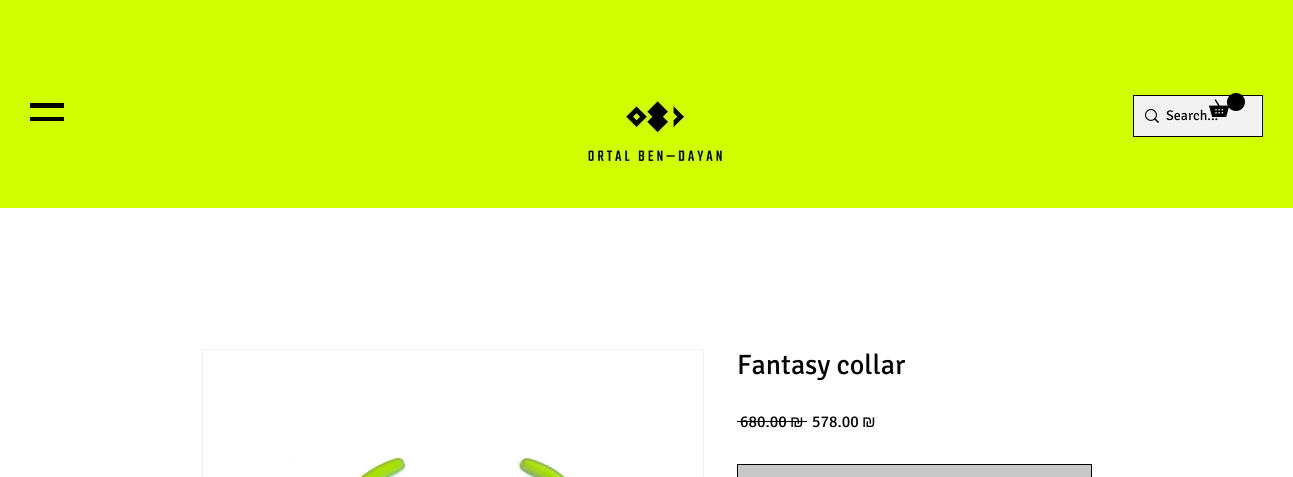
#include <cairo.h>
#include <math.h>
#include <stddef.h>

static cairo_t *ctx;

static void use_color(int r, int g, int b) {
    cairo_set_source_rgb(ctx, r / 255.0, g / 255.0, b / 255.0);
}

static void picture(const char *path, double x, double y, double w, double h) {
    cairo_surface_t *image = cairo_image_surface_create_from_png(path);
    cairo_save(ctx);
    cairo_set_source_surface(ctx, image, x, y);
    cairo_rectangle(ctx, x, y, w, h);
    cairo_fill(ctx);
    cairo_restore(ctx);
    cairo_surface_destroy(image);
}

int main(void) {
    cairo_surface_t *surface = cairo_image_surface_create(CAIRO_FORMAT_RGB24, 1293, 477);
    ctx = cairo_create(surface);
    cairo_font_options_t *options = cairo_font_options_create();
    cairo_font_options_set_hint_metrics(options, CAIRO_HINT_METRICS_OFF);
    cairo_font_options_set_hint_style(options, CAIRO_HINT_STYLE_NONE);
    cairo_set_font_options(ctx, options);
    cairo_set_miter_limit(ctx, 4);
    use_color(255, 255, 255);
    cairo_paint(ctx);
    use_color(209, 255, 0);
    cairo_rectangle(ctx, 0, 0, 1293, 208);
    cairo_fill(ctx);
    use_color(0, 0, 0);
    cairo_rectangle(ctx, 30, 103, 34, 5);
    cairo_fill(ctx);
    cairo_rectangle(ctx, 30, 117, 34, 4);
    cairo_fill(ctx);
    picture("img1.png", 588, 101, 134, 60);
    cairo_rectangle(ctx, 1133.5, 95.5, 129, 41);
    cairo_set_line_width(ctx, 1);
    cairo_stroke(ctx);
    use_color(242, 242, 242);
    cairo_rectangle(ctx, 1134, 96, 128, 40);
    cairo_fill(ctx);
    picture("img2.png", 1145, 109, 14, 14);
    cairo_select_font_face(ctx, "Signika", CAIRO_FONT_SLANT_NORMAL, CAIRO_FONT_WEIGHT_NORMAL);
    cairo_set_font_size(ctx, 14);
    use_color(0, 0, 0);
    cairo_move_to(ctx, 1166, 120);
    cairo_show_text(ctx, "Search...");
    picture("img3.png", 1209, 93, 36, 24);
    cairo_rectangle(ctx, 202.5, 349.5, 501, 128);
    use_color(242, 242, 242);
    cairo_stroke(ctx);
    picture("img4.png", 293, 454, 278, 23);
    cairo_set_font_size(ctx, 28);
    use_color(0, 0, 0);
    cairo_move_to(ctx, 737, 374);
    cairo_show_text(ctx, "Fantasy collar");
    cairo_set_font_size(ctx, 16);
    cairo_move_to(ctx, 740, 427);
    cairo_show_text(ctx, "680.00");
    cairo_rectangle(ctx, 737, 421, 70, 1);
    cairo_fill(ctx);
    cairo_select_font_face(ctx, "Liberation Sans", CAIRO_FONT_SLANT_NORMAL, CAIRO_FONT_WEIGHT_NORMAL);
    cairo_move_to(ctx, 790, 427);
    cairo_show_text(ctx, "₪");
    cairo_select_font_face(ctx, "Signika", CAIRO_FONT_SLANT_NORMAL, CAIRO_FONT_WEIGHT_NORMAL);
    cairo_move_to(ctx, 812, 427);
    cairo_show_text(ctx, "578.00");
    cairo_select_font_face(ctx, "Liberation Sans", CAIRO_FONT_SLANT_NORMAL, CAIRO_FONT_WEIGHT_NORMAL);
    cairo_move_to(ctx, 862, 427);
    cairo_show_text(ctx, "₪");
    use_color(199, 199, 199);
    cairo_rectangle(ctx, 737.5, 464.5, 354, 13);
    cairo_fill_preserve(ctx);
    use_color(0, 0, 0);
    cairo_stroke(ctx);
    cairo_surface_write_to_png(surface, "result.png");
    cairo_font_options_destroy(options);
    cairo_destroy(ctx);
    cairo_surface_destroy(surface);
    return 0;
}
